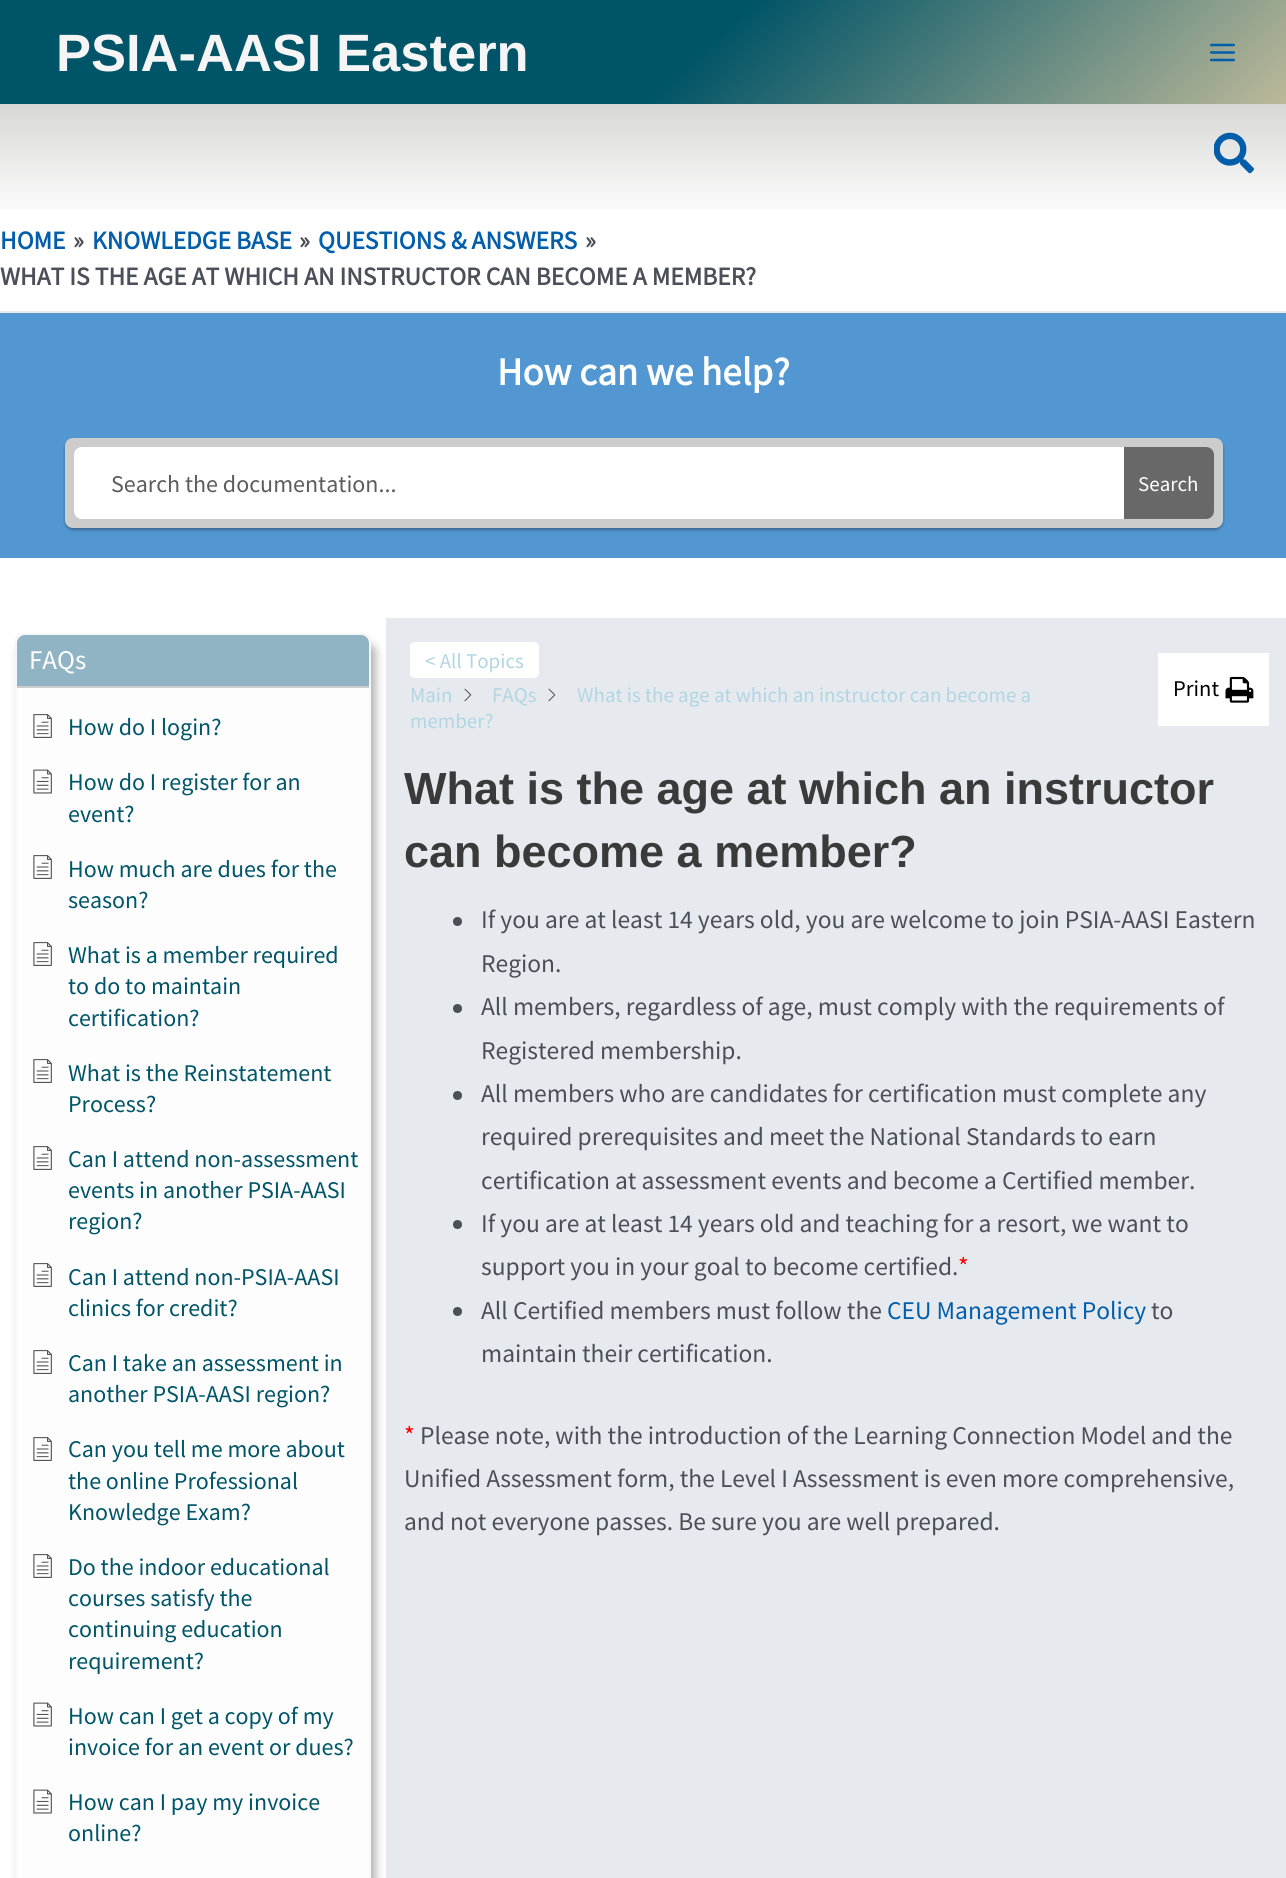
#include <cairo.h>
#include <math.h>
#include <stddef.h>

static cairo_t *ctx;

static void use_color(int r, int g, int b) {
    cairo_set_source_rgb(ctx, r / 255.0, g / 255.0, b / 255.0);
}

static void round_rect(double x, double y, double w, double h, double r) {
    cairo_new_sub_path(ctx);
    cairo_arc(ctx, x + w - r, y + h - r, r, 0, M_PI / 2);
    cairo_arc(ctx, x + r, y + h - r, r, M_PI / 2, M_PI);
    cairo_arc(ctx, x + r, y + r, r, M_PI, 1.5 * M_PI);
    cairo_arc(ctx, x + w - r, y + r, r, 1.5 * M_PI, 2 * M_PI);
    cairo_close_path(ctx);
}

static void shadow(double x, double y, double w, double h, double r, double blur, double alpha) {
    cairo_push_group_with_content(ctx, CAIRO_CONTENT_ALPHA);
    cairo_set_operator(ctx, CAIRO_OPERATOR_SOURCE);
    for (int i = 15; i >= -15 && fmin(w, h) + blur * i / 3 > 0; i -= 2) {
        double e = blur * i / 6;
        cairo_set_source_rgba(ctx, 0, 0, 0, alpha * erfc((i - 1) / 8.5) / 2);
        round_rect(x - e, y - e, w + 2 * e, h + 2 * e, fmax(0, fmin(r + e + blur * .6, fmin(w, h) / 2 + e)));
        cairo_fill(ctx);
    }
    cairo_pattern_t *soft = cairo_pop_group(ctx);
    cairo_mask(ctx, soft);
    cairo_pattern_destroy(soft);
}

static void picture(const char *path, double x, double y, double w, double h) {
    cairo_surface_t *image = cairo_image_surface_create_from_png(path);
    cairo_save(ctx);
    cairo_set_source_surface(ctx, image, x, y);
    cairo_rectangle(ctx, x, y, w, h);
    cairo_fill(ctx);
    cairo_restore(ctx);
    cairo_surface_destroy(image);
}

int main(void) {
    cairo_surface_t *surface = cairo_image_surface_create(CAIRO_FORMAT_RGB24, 1286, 1878);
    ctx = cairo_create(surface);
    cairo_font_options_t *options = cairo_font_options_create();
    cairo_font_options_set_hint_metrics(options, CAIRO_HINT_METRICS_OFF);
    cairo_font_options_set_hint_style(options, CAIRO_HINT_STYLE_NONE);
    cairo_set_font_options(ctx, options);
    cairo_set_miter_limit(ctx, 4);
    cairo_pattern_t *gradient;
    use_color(255, 255, 255);
    cairo_paint(ctx);
    gradient = cairo_pattern_create_linear(318, -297, 969, 400);
    cairo_pattern_add_color_stop_rgba(gradient, 0.54, 0, 0.329, 0.404, 1);
    cairo_pattern_add_color_stop_rgba(gradient, 1, 0.737, 0.725, 0.6, 1);
    cairo_set_source(ctx, gradient);
    cairo_pattern_destroy(gradient);
    cairo_rectangle(ctx, 0, 0, 1286, 104);
    cairo_fill(ctx);
    cairo_select_font_face(ctx, "Liberation Sans", CAIRO_FONT_SLANT_NORMAL, CAIRO_FONT_WEIGHT_BOLD);
    cairo_set_font_size(ctx, 52.5);
    use_color(245, 245, 245);
    cairo_move_to(ctx, 56, 71);
    cairo_show_text(ctx, "PSIA-AASI Eastern");
    picture("img1.png", 1210, 43, 25, 19);
    gradient = cairo_pattern_create_linear(644, 103, 644, 209);
    cairo_pattern_add_color_stop_rgba(gradient, 0, 0.843, 0.843, 0.839, 1);
    cairo_pattern_add_color_stop_rgba(gradient, 0.96, 0.98, 0.98, 0.98, 1);
    cairo_set_source(ctx, gradient);
    cairo_pattern_destroy(gradient);
    cairo_rectangle(ctx, 0, 104, 1286, 105);
    cairo_fill(ctx);
    picture("img2.png", 1214, 132, 40, 42);
    use_color(234, 234, 234);
    cairo_rectangle(ctx, 0, 311, 1286, 2);
    cairo_fill(ctx);
    cairo_select_font_face(ctx, "Source Sans Pro", CAIRO_FONT_SLANT_NORMAL, CAIRO_FONT_WEIGHT_BOLD);
    cairo_set_font_size(ctx, 25.5);
    use_color(0, 93, 170);
    cairo_move_to(ctx, 0, 249);
    cairo_show_text(ctx, "HOME");
    use_color(75, 79, 88);
    cairo_move_to(ctx, 73, 249);
    cairo_show_text(ctx, "»");
    use_color(0, 93, 170);
    cairo_move_to(ctx, 92, 249);
    cairo_show_text(ctx, "KNOWLEDGE BASE");
    use_color(75, 79, 88);
    cairo_move_to(ctx, 299, 249);
    cairo_show_text(ctx, "»");
    use_color(0, 93, 170);
    cairo_move_to(ctx, 318, 249);
    cairo_show_text(ctx, "QUESTIONS & ANSWERS");
    use_color(75, 79, 88);
    cairo_move_to(ctx, 585, 249);
    cairo_show_text(ctx, "»");
    cairo_move_to(ctx, 0, 285);
    cairo_show_text(ctx, "WHAT IS THE AGE AT WHICH AN INSTRUCTOR CAN BECOME A MEMBER?");
    use_color(83, 151, 210);
    cairo_rectangle(ctx, 0, 313, 1286, 245);
    cairo_fill(ctx);
    cairo_set_font_size(ctx, 39);
    use_color(255, 255, 255);
    cairo_move_to(ctx, 497, 385);
    cairo_show_text(ctx, "How can we help?");
    use_color(0, 0, 0);
    shadow(65, 440, 1158, 90, 8, 1.5, 0.32);
    use_color(204, 204, 204);
    round_rect(65, 438, 1158, 90, 8);
    cairo_fill(ctx);
    use_color(255, 255, 255);
    cairo_new_path(ctx);
    cairo_move_to(ctx, 82, 447);
    cairo_line_to(ctx, 1124, 447);
    cairo_line_to(ctx, 1124, 519);
    cairo_line_to(ctx, 82, 519);
    cairo_curve_to(ctx, 77.5, 519, 74, 515.5, 74, 511);
    cairo_line_to(ctx, 74, 455);
    cairo_curve_to(ctx, 74, 450.5, 77.5, 447, 82, 447);
    cairo_close_path(ctx);
    cairo_fill(ctx);
    cairo_select_font_face(ctx, "Source Sans Pro", CAIRO_FONT_SLANT_NORMAL, CAIRO_FONT_WEIGHT_NORMAL);
    cairo_set_font_size(ctx, 24);
    use_color(92, 92, 92);
    cairo_move_to(ctx, 111, 492);
    cairo_show_text(ctx, "Search the documentation...");
    use_color(104, 104, 104);
    cairo_new_path(ctx);
    cairo_move_to(ctx, 1124, 447);
    cairo_line_to(ctx, 1206, 447);
    cairo_curve_to(ctx, 1210.5, 447, 1214, 450.5, 1214, 455);
    cairo_line_to(ctx, 1214, 511);
    cairo_curve_to(ctx, 1214, 515.5, 1210.5, 519, 1206, 519);
    cairo_line_to(ctx, 1124, 519);
    cairo_close_path(ctx);
    cairo_fill(ctx);
    cairo_set_font_size(ctx, 21);
    use_color(255, 255, 255);
    cairo_move_to(ctx, 1138, 491);
    cairo_show_text(ctx, "Search");
    use_color(0, 0, 0);
    shadow(20, 644, 355, 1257, 8, 5, 0.34);
    use_color(253, 253, 253);
    round_rect(16, 634, 354, 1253, 7);
    cairo_fill_preserve(ctx);
    use_color(247, 247, 247);
    cairo_stroke(ctx);
    use_color(144, 180, 196);
    cairo_new_path(ctx);
    cairo_move_to(ctx, 25, 635);
    cairo_line_to(ctx, 361, 635);
    cairo_curve_to(ctx, 365.5, 635, 369, 638.5, 369, 643);
    cairo_line_to(ctx, 369, 687);
    cairo_line_to(ctx, 17, 687);
    cairo_line_to(ctx, 17, 643);
    cairo_curve_to(ctx, 17, 638.5, 20.5, 635, 25, 635);
    cairo_close_path(ctx);
    cairo_fill(ctx);
    use_color(205, 205, 205);
    cairo_rectangle(ctx, 17, 686, 352, 2);
    cairo_fill(ctx);
    cairo_set_font_size(ctx, 27);
    use_color(255, 255, 255);
    cairo_move_to(ctx, 29, 669);
    cairo_show_text(ctx, "FAQs");
    picture("img3.png", 33, 714, 19, 24);
    cairo_set_font_size(ctx, 24);
    use_color(0, 84, 103);
    cairo_move_to(ctx, 68, 735);
    cairo_show_text(ctx, "How do I login?");
    picture("img4.png", 33, 769, 19, 25);
    cairo_move_to(ctx, 68, 790);
    cairo_show_text(ctx, "How do I register for an");
    cairo_move_to(ctx, 68, 822);
    cairo_show_text(ctx, "event?");
    picture("img3.png", 33, 855, 19, 24);
    cairo_move_to(ctx, 68, 877);
    cairo_show_text(ctx, "How much are dues for the");
    cairo_move_to(ctx, 68, 908);
    cairo_show_text(ctx, "season?");
    picture("img3.png", 33, 942, 19, 24);
    cairo_move_to(ctx, 68, 963);
    cairo_show_text(ctx, "What is a member required");
    cairo_move_to(ctx, 68, 994);
    cairo_show_text(ctx, "to do to maintain");
    cairo_move_to(ctx, 68, 1026);
    cairo_show_text(ctx, "certification?");
    picture("img3.png", 33, 1059, 19, 24);
    cairo_move_to(ctx, 68, 1081);
    cairo_show_text(ctx, "What is the Reinstatement");
    cairo_move_to(ctx, 68, 1112);
    cairo_show_text(ctx, "Process?");
    picture("img3.png", 33, 1146, 19, 24);
    cairo_move_to(ctx, 68, 1167);
    cairo_show_text(ctx, "Can I attend non-assessment");
    cairo_move_to(ctx, 68, 1198);
    cairo_show_text(ctx, "events in another PSIA-AASI");
    cairo_move_to(ctx, 68, 1229);
    cairo_show_text(ctx, "region?");
    picture("img3.png", 33, 1263, 19, 24);
    cairo_move_to(ctx, 68, 1285);
    cairo_show_text(ctx, "Can I attend non-PSIA-AASI");
    cairo_move_to(ctx, 68, 1316);
    cairo_show_text(ctx, "clinics for credit?");
    picture("img3.png", 33, 1350, 19, 24);
    cairo_move_to(ctx, 68, 1371);
    cairo_show_text(ctx, "Can I take an assessment in");
    cairo_move_to(ctx, 68, 1402);
    cairo_show_text(ctx, "another PSIA-AASI region?");
    picture("img3.png", 33, 1437, 19, 24);
    cairo_move_to(ctx, 68, 1457);
    cairo_show_text(ctx, "Can you tell me more about");
    cairo_move_to(ctx, 68, 1489);
    cairo_show_text(ctx, "the online Professional");
    cairo_move_to(ctx, 68, 1520);
    cairo_show_text(ctx, "Knowledge Exam?");
    picture("img3.png", 33, 1554, 19, 24);
    cairo_move_to(ctx, 68, 1575);
    cairo_show_text(ctx, "Do the indoor educational");
    cairo_move_to(ctx, 68, 1606);
    cairo_show_text(ctx, "courses satisfy the");
    cairo_move_to(ctx, 68, 1637);
    cairo_show_text(ctx, "continuing education");
    cairo_move_to(ctx, 68, 1669);
    cairo_show_text(ctx, "requirement?");
    picture("img4.png", 33, 1702, 19, 25);
    cairo_move_to(ctx, 68, 1724);
    cairo_show_text(ctx, "How can I get a copy of my");
    cairo_move_to(ctx, 68, 1755);
    cairo_show_text(ctx, "invoice for an event or dues?");
    picture("img4.png", 33, 1789, 19, 25);
    cairo_move_to(ctx, 68, 1810);
    cairo_show_text(ctx, "How can I pay my invoice");
    cairo_move_to(ctx, 68, 1841);
    cairo_show_text(ctx, "online?");
    use_color(230, 234, 239);
    cairo_rectangle(ctx, 386, 618, 900, 1260);
    cairo_fill(ctx);
    use_color(255, 255, 255);
    round_rect(410, 642, 129, 36, 5);
    cairo_fill(ctx);
    cairo_set_font_size(ctx, 21);
    use_color(177, 213, 225);
    cairo_move_to(ctx, 425, 668);
    cairo_show_text(ctx, "< All Topics");
    cairo_move_to(ctx, 410, 702);
    cairo_show_text(ctx, "Main");
    picture("img5.png", 464, 688, 8, 14);
    cairo_move_to(ctx, 492, 702);
    cairo_show_text(ctx, "FAQs");
    picture("img5.png", 548, 688, 8, 14);
    cairo_move_to(ctx, 577, 702);
    cairo_show_text(ctx, "What is the age at which an instructor can become a");
    cairo_move_to(ctx, 410, 728);
    cairo_show_text(ctx, "member?");
    use_color(255, 255, 255);
    cairo_rectangle(ctx, 1158, 653, 111, 73);
    cairo_fill(ctx);
    cairo_set_font_size(ctx, 22.5);
    use_color(0, 0, 0);
    cairo_move_to(ctx, 1173, 696);
    cairo_show_text(ctx, "Print");
    picture("img6.png", 1225, 676, 29, 27);
    cairo_select_font_face(ctx, "Liberation Sans", CAIRO_FONT_SLANT_NORMAL, CAIRO_FONT_WEIGHT_BOLD);
    cairo_set_font_size(ctx, 45);
    use_color(58, 58, 58);
    cairo_move_to(ctx, 404, 804);
    cairo_show_text(ctx, "What is the age at which an instructor");
    cairo_move_to(ctx, 404, 867);
    cairo_show_text(ctx, "can become a member?");
    use_color(75, 79, 88);
    cairo_new_path(ctx);
    cairo_arc(ctx, 457.5, 921.5, 4.5, 0, 2 * M_PI);
    cairo_fill(ctx);
    cairo_select_font_face(ctx, "Source Sans Pro", CAIRO_FONT_SLANT_NORMAL, CAIRO_FONT_WEIGHT_NORMAL);
    cairo_set_font_size(ctx, 25.5);
    cairo_move_to(ctx, 481, 928);
    cairo_show_text(ctx, "If you are at least 14 years old, you are welcome to join PSIA-AASI Eastern");
    cairo_move_to(ctx, 481, 972);
    cairo_show_text(ctx, "Region.");
    cairo_new_path(ctx);
    cairo_arc(ctx, 457.5, 1008.5, 4.5, 0, 2 * M_PI);
    cairo_fill(ctx);
    cairo_move_to(ctx, 481, 1015);
    cairo_show_text(ctx, "All members, regardless of age, must comply with the requirements of");
    cairo_move_to(ctx, 481, 1059);
    cairo_show_text(ctx, "Registered membership.");
    cairo_new_path(ctx);
    cairo_arc(ctx, 457.5, 1095.5, 4.5, 0, 2 * M_PI);
    cairo_fill(ctx);
    cairo_move_to(ctx, 481, 1102);
    cairo_show_text(ctx, "All members who are candidates for certification must complete any");
    cairo_move_to(ctx, 481, 1145);
    cairo_show_text(ctx, "required prerequisites and meet the National Standards to earn");
    cairo_move_to(ctx, 481, 1189);
    cairo_show_text(ctx, "certification at assessment events and become a Certified member.");
    cairo_new_path(ctx);
    cairo_arc(ctx, 457.5, 1224.5, 4.5, 0, 2 * M_PI);
    cairo_fill(ctx);
    cairo_move_to(ctx, 481, 1232);
    cairo_show_text(ctx, "If you are at least 14 years old and teaching for a resort, we want to");
    cairo_move_to(ctx, 481, 1275);
    cairo_show_text(ctx, "support you in your goal to become certified.");
    use_color(255, 0, 0);
    cairo_move_to(ctx, 958, 1275);
    cairo_show_text(ctx, "*");
    use_color(75, 79, 88);
    cairo_new_path(ctx);
    cairo_arc(ctx, 457.5, 1311.5, 4.5, 0, 2 * M_PI);
    cairo_fill(ctx);
    cairo_move_to(ctx, 481, 1319);
    cairo_show_text(ctx, "All Certified members must follow the");
    use_color(0, 93, 170);
    cairo_move_to(ctx, 887, 1319);
    cairo_show_text(ctx, "CEU Management Policy");
    use_color(75, 79, 88);
    cairo_move_to(ctx, 1151, 1319);
    cairo_show_text(ctx, "to");
    cairo_move_to(ctx, 481, 1362);
    cairo_show_text(ctx, "maintain their certification.");
    use_color(255, 0, 0);
    cairo_move_to(ctx, 404, 1444);
    cairo_show_text(ctx, "*");
    use_color(75, 79, 88);
    cairo_move_to(ctx, 420, 1444);
    cairo_show_text(ctx, "Please note, with the introduction of the Learning Connection Model and the");
    cairo_move_to(ctx, 404, 1487);
    cairo_show_text(ctx, "Unified Assessment form, the Level I Assessment is even more comprehensive,");
    cairo_move_to(ctx, 404, 1530);
    cairo_show_text(ctx, "and not everyone passes. Be sure you are well prepared.");
    cairo_surface_write_to_png(surface, "result.png");
    cairo_font_options_destroy(options);
    cairo_destroy(ctx);
    cairo_surface_destroy(surface);
    return 0;
}
